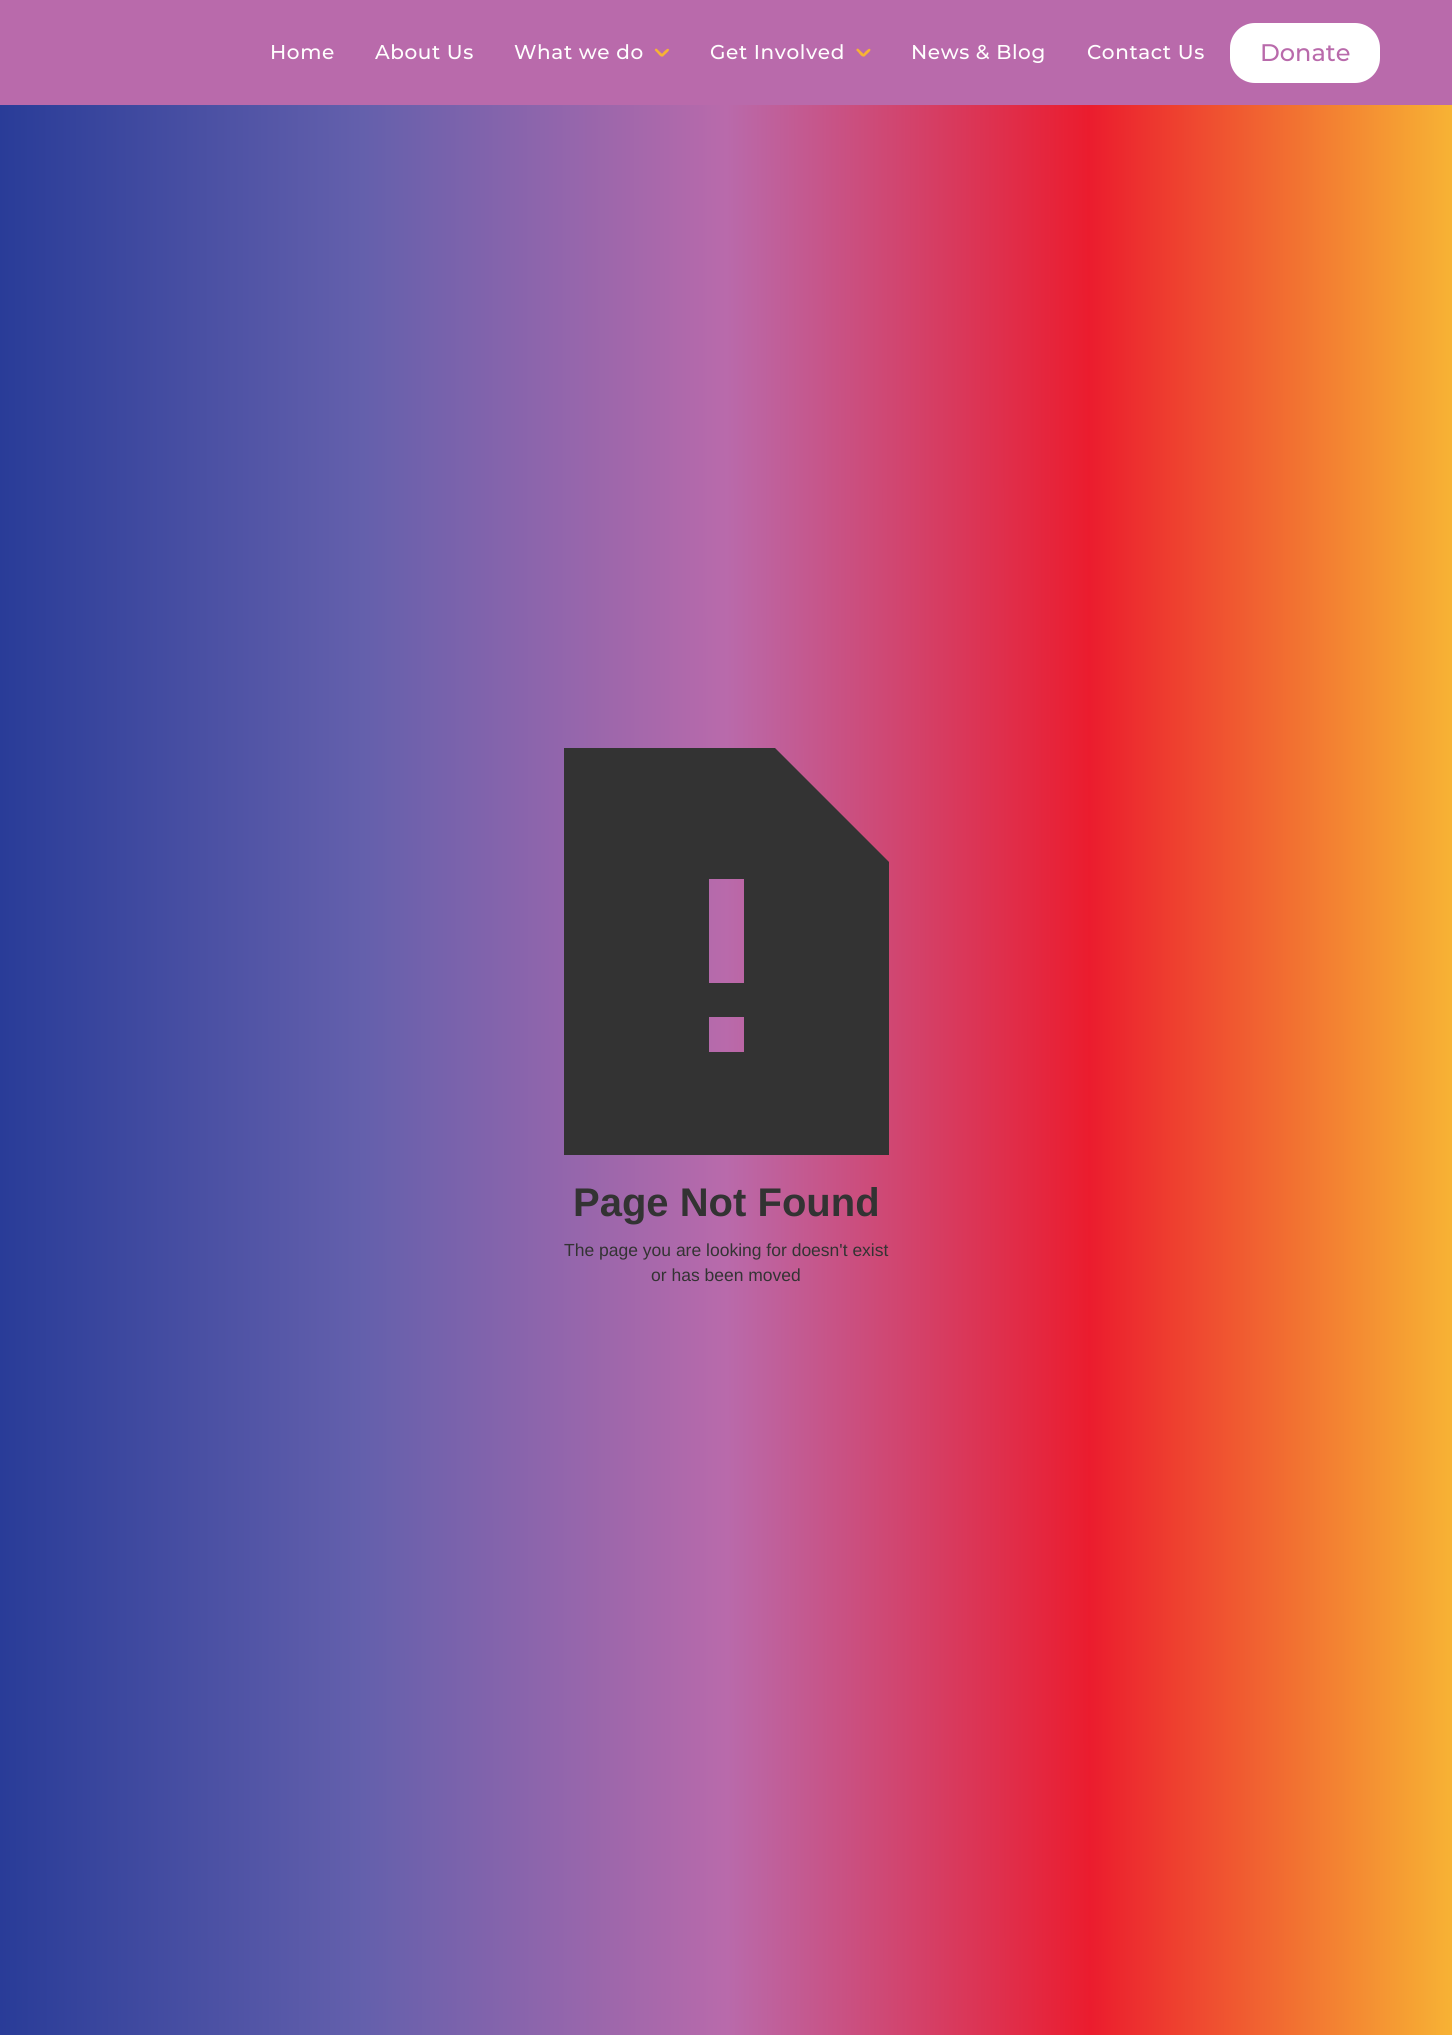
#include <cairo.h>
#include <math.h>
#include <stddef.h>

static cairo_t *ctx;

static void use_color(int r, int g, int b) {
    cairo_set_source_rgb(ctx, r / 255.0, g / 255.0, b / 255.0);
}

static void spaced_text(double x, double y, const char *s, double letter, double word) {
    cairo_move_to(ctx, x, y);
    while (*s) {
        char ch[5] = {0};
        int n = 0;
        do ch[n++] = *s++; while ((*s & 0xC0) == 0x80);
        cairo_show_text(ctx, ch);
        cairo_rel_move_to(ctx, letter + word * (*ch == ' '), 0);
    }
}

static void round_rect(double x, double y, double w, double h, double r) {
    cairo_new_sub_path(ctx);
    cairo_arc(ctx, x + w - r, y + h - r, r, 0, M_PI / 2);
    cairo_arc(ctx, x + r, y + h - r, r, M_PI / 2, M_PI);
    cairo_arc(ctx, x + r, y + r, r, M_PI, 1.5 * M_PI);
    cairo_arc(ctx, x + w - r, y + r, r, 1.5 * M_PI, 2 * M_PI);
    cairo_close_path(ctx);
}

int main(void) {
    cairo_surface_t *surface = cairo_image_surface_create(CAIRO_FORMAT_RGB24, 1452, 2035);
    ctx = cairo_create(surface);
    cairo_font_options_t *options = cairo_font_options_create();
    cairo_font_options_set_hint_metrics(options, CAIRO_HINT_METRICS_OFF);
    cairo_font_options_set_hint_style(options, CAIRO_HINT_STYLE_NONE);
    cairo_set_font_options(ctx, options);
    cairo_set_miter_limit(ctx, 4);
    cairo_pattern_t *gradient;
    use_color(255, 255, 255);
    cairo_paint(ctx);
    use_color(185, 106, 171);
    cairo_rectangle(ctx, 0, 0, 1452, 105);
    cairo_fill(ctx);
    cairo_select_font_face(ctx, "Montserrat Medium", CAIRO_FONT_SLANT_NORMAL, CAIRO_FONT_WEIGHT_NORMAL);
    cairo_set_font_size(ctx, 20);
    use_color(255, 254, 254);
    spaced_text(270, 59, "Home", 0.6, 0);
    spaced_text(375, 59, "About Us", 0.6, 0);
    spaced_text(514, 59, "What we do", 0.6, 0);
    use_color(247, 179, 52);
    cairo_new_path(ctx);
    cairo_move_to(ctx, 657, 49);
    cairo_line_to(ctx, 659.5, 51.5);
    cairo_curve_to(ctx, 660.5, 52.5, 663.5, 54.5, 662.5, 56);
    cairo_curve_to(ctx, 661, 58, 658, 53.5, 657, 52.5);
    cairo_line_to(ctx, 655, 50.5);
    cairo_curve_to(ctx, 654.5, 49, 656, 48, 657, 49);
    cairo_close_path(ctx);
    cairo_fill(ctx);
    cairo_new_path(ctx);
    cairo_move_to(ctx, 661.5, 54.5);
    cairo_line_to(ctx, 664, 51.5);
    cairo_curve_to(ctx, 665, 51, 667, 48, 668.5, 49);
    cairo_curve_to(ctx, 670.5, 50, 666, 53.5, 665, 54.5);
    cairo_line_to(ctx, 663, 56.5);
    cairo_curve_to(ctx, 661.5, 57, 660.5, 55, 661.5, 54.5);
    cairo_close_path(ctx);
    cairo_fill(ctx);
    use_color(255, 254, 254);
    spaced_text(710, 59, "Get Involved", 0.6, 0);
    use_color(247, 179, 52);
    cairo_new_path(ctx);
    cairo_move_to(ctx, 858.5, 49);
    cairo_line_to(ctx, 861, 51.5);
    cairo_curve_to(ctx, 862, 52.5, 865, 54.5, 864, 56);
    cairo_curve_to(ctx, 862.5, 58, 859, 53.5, 858.5, 52.5);
    cairo_line_to(ctx, 856.5, 50.5);
    cairo_curve_to(ctx, 856, 49, 857.5, 48, 858.5, 49);
    cairo_close_path(ctx);
    cairo_fill(ctx);
    cairo_new_path(ctx);
    cairo_move_to(ctx, 863, 54.5);
    cairo_line_to(ctx, 865.5, 51.5);
    cairo_curve_to(ctx, 866.5, 51, 868.5, 48, 870, 49);
    cairo_curve_to(ctx, 872, 50, 867.5, 53.5, 866.5, 54.5);
    cairo_line_to(ctx, 864.5, 56.5);
    cairo_curve_to(ctx, 863, 57, 862, 55, 863, 54.5);
    cairo_close_path(ctx);
    cairo_fill(ctx);
    use_color(255, 254, 254);
    spaced_text(911, 59, "News & Blog", 0.6, 0);
    spaced_text(1087, 59, "Contact Us", 0.6, 0);
    use_color(255, 255, 255);
    round_rect(1230, 23, 150, 60, 25);
    cairo_fill(ctx);
    cairo_set_font_size(ctx, 24);
    use_color(185, 106, 171);
    cairo_move_to(ctx, 1260, 61);
    cairo_show_text(ctx, "Donate");
    gradient = cairo_pattern_create_linear(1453, 1017, 0, 1018);
    cairo_pattern_add_color_stop_rgba(gradient, 0, 0.969, 0.702, 0.204, 1);
    cairo_pattern_add_color_stop_rgba(gradient, 0.25, 0.922, 0.11, 0.18, 1);
    cairo_pattern_add_color_stop_rgba(gradient, 0.5, 0.725, 0.416, 0.671, 1);
    cairo_pattern_add_color_stop_rgba(gradient, 0.75, 0.392, 0.376, 0.675, 1);
    cairo_pattern_add_color_stop_rgba(gradient, 1, 0.161, 0.235, 0.596, 1);
    cairo_set_source(ctx, gradient);
    cairo_pattern_destroy(gradient);
    cairo_rectangle(ctx, 0, 105, 1452, 1930);
    cairo_fill(ctx);
    use_color(51, 51, 51);
    cairo_set_fill_rule(ctx, CAIRO_FILL_RULE_EVEN_ODD);
    cairo_new_path(ctx);
    cairo_move_to(ctx, 564, 748);
    cairo_line_to(ctx, 775, 748);
    cairo_line_to(ctx, 889, 862);
    cairo_line_to(ctx, 889, 1155);
    cairo_line_to(ctx, 564, 1155);
    cairo_close_path(ctx);
    cairo_move_to(ctx, 709, 879);
    cairo_line_to(ctx, 744, 879);
    cairo_line_to(ctx, 744, 983);
    cairo_line_to(ctx, 709, 983);
    cairo_close_path(ctx);
    cairo_move_to(ctx, 709, 1017);
    cairo_line_to(ctx, 744, 1017);
    cairo_line_to(ctx, 744, 1052);
    cairo_line_to(ctx, 709, 1052);
    cairo_close_path(ctx);
    cairo_fill(ctx);
    cairo_select_font_face(ctx, "Liberation Sans", CAIRO_FONT_SLANT_NORMAL, CAIRO_FONT_WEIGHT_BOLD);
    cairo_set_font_size(ctx, 40);
    cairo_move_to(ctx, 573, 1216);
    cairo_show_text(ctx, "Page Not Found");
    cairo_select_font_face(ctx, "Liberation Sans", CAIRO_FONT_SLANT_NORMAL, CAIRO_FONT_WEIGHT_NORMAL);
    cairo_set_font_size(ctx, 17.5);
    cairo_move_to(ctx, 564, 1256);
    cairo_show_text(ctx, "The page you are looking for doesn't exist");
    cairo_move_to(ctx, 651, 1281);
    cairo_show_text(ctx, "or has been moved");
    cairo_surface_write_to_png(surface, "result.png");
    cairo_font_options_destroy(options);
    cairo_destroy(ctx);
    cairo_surface_destroy(surface);
    return 0;
}
